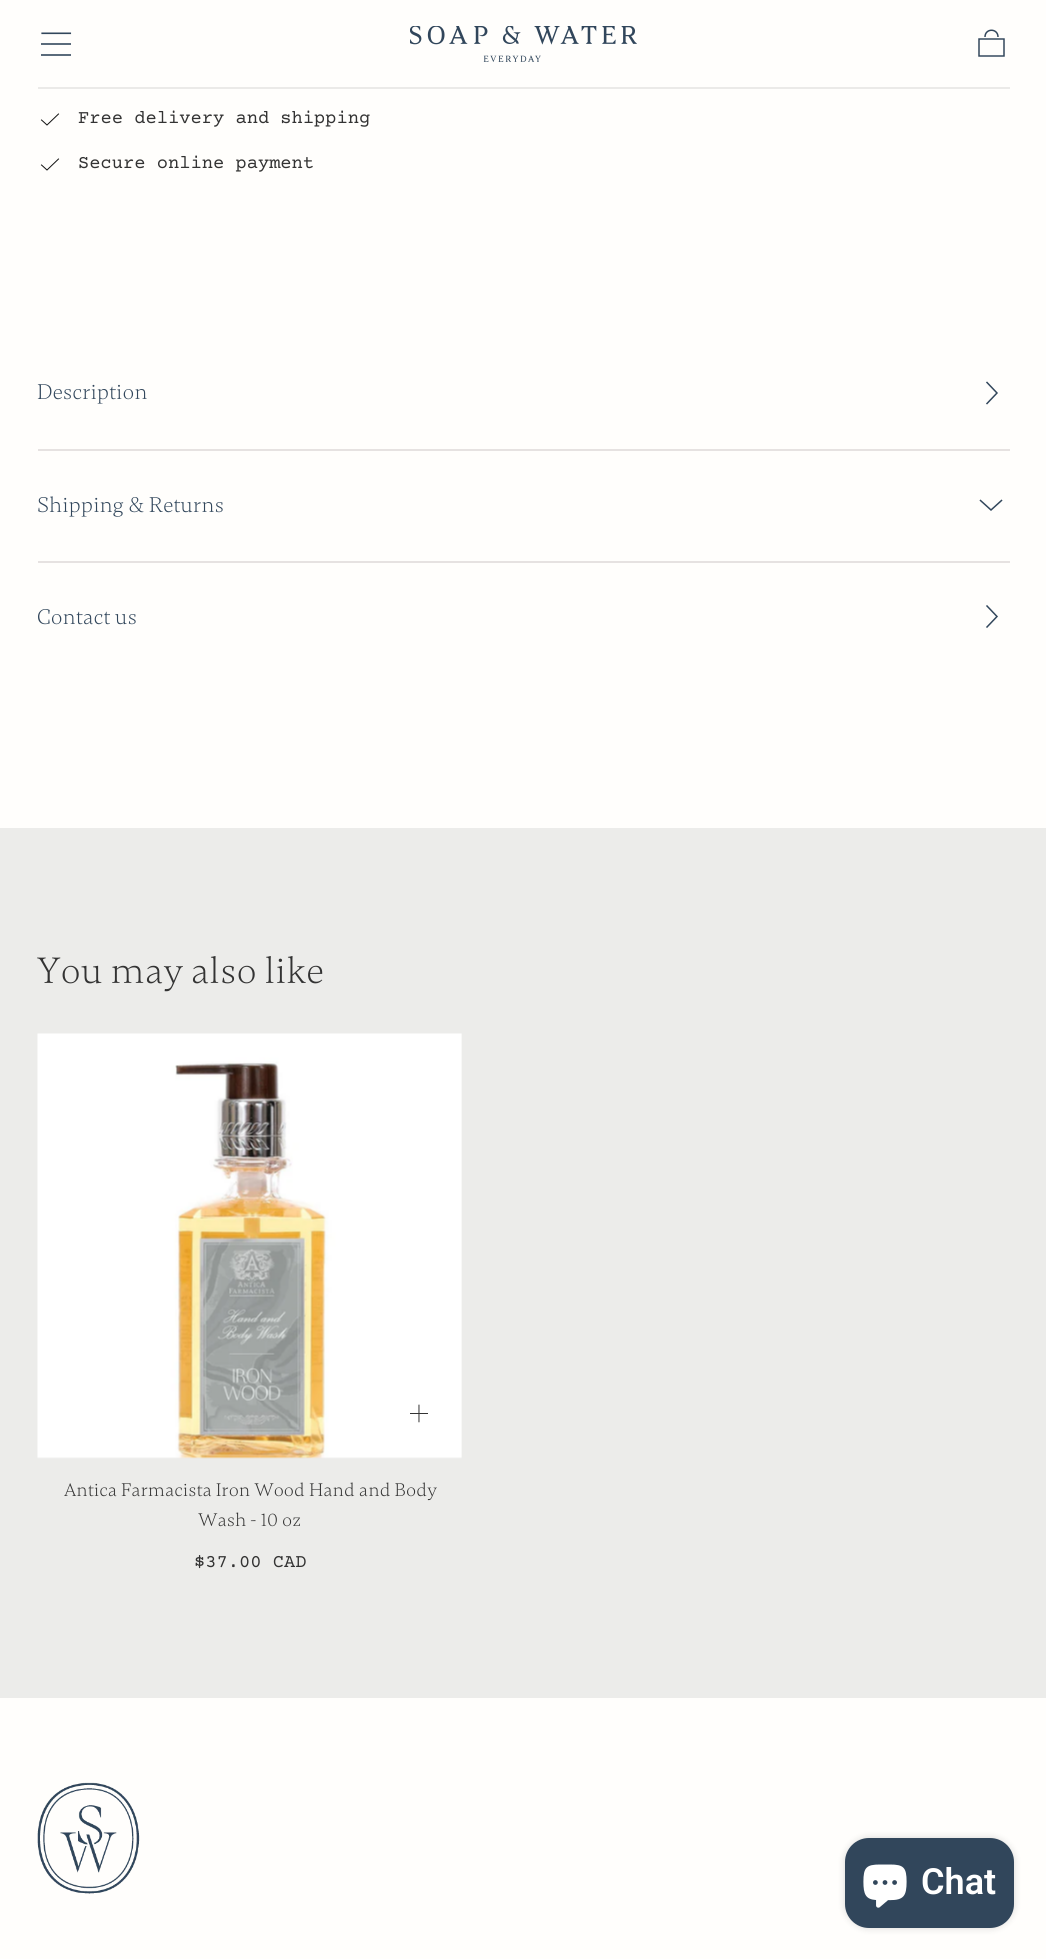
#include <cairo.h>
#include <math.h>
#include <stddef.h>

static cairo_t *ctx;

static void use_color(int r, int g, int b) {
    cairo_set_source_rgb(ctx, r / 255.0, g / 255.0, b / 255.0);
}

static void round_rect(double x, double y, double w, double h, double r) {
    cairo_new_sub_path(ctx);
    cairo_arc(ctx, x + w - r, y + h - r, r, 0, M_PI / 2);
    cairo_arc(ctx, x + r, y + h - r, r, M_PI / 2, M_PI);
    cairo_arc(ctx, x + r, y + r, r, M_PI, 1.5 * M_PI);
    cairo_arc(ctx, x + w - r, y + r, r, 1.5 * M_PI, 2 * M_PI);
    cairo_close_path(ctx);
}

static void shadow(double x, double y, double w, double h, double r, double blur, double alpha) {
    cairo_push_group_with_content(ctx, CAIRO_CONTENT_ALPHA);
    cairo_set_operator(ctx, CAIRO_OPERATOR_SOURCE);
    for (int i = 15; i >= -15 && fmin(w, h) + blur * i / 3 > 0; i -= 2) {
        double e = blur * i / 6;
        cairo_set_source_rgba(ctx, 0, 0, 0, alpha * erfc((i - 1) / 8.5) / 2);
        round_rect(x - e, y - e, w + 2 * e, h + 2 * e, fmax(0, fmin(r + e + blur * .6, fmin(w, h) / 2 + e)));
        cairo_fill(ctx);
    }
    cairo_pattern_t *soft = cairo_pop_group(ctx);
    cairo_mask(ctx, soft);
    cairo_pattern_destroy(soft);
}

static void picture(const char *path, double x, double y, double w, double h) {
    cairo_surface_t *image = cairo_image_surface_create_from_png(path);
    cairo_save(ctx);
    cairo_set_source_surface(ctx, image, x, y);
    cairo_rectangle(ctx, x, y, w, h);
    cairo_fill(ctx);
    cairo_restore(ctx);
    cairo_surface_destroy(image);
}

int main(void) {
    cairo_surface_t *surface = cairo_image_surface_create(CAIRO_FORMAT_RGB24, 1046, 1959);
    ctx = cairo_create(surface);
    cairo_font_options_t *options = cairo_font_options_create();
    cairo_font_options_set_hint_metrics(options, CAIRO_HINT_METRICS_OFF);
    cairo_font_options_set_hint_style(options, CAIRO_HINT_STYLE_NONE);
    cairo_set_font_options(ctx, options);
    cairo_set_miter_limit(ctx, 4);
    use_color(255, 254, 252);
    cairo_paint(ctx);
    picture("img1.png", 41, 32, 31, 24);
    picture("img2.png", 410, 26, 227, 36);
    cairo_new_path(ctx);
    cairo_move_to(ctx, 1004, 56);
    cairo_line_to(ctx, 979, 56);
    cairo_line_to(ctx, 979, 39);
    cairo_line_to(ctx, 1004, 39);
    cairo_close_path(ctx);
    cairo_move_to(ctx, 998, 37);
    cairo_curve_to(ctx, 998, 28, 985, 28, 985, 37);
    use_color(49, 70, 91);
    cairo_set_line_width(ctx, 1.5);
    cairo_stroke(ctx);
    use_color(235, 234, 232);
    cairo_rectangle(ctx, 38, 87, 972, 2);
    cairo_fill(ctx);
    cairo_new_path(ctx);
    cairo_move_to(ctx, 58.5, 114);
    cairo_line_to(ctx, 47, 125);
    cairo_line_to(ctx, 41.5, 120);
    cairo_move_to(ctx, 58.5, 159);
    cairo_line_to(ctx, 47, 170);
    cairo_line_to(ctx, 41.5, 165);
    use_color(17, 17, 17);
    cairo_set_line_width(ctx, 1);
    cairo_set_line_cap(ctx, CAIRO_LINE_CAP_SQUARE);
    cairo_stroke(ctx);
    cairo_select_font_face(ctx, "Courier Prime", CAIRO_FONT_SLANT_NORMAL, CAIRO_FONT_WEIGHT_NORMAL);
    cairo_set_font_size(ctx, 18.75);
    use_color(51, 51, 51);
    cairo_move_to(ctx, 78, 123);
    cairo_show_text(ctx, "Free delivery and shipping");
    cairo_move_to(ctx, 78, 168);
    cairo_show_text(ctx, "Secure online payment");
    cairo_select_font_face(ctx, "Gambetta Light", CAIRO_FONT_SLANT_NORMAL, CAIRO_FONT_WEIGHT_NORMAL);
    cairo_set_font_size(ctx, 21.75);
    use_color(49, 70, 91);
    cairo_move_to(ctx, 37, 399);
    cairo_show_text(ctx, "Description");
    cairo_new_path(ctx);
    cairo_move_to(ctx, 987, 403.5);
    cairo_line_to(ctx, 997, 393);
    cairo_line_to(ctx, 987, 382.5);
    cairo_set_line_width(ctx, 1.5);
    cairo_stroke(ctx);
    use_color(230, 226, 225);
    cairo_rectangle(ctx, 38, 449, 972, 2);
    cairo_fill(ctx);
    use_color(49, 70, 91);
    cairo_move_to(ctx, 37, 512);
    cairo_show_text(ctx, "Shipping & Returns");
    cairo_new_path(ctx);
    cairo_move_to(ctx, 980.5, 500.5);
    cairo_line_to(ctx, 991, 510);
    cairo_line_to(ctx, 1001.5, 500.5);
    cairo_stroke(ctx);
    use_color(230, 226, 225);
    cairo_rectangle(ctx, 38, 561, 972, 2);
    cairo_fill(ctx);
    use_color(49, 70, 91);
    cairo_move_to(ctx, 37, 624);
    cairo_show_text(ctx, "Contact us");
    cairo_new_path(ctx);
    cairo_move_to(ctx, 987, 627);
    cairo_line_to(ctx, 997, 616.5);
    cairo_line_to(ctx, 987, 606);
    cairo_stroke(ctx);
    use_color(236, 236, 234);
    cairo_rectangle(ctx, 0, 828, 1046, 870);
    cairo_fill(ctx);
    cairo_set_font_size(ctx, 37.5);
    use_color(51, 51, 51);
    cairo_move_to(ctx, 37, 983);
    cairo_show_text(ctx, "You may also like");
    picture("img3.png", 37, 1033, 425, 426);
    picture("img4.png", 410, 1404, 18, 19);
    cairo_set_font_size(ctx, 18.75);
    cairo_move_to(ctx, 64, 1496);
    cairo_show_text(ctx, "Antica Farmacista Iron Wood Hand and Body");
    cairo_move_to(ctx, 198, 1526);
    cairo_show_text(ctx, "Wash - 10 oz");
    cairo_select_font_face(ctx, "Courier Prime", CAIRO_FONT_SLANT_NORMAL, CAIRO_FONT_WEIGHT_NORMAL);
    cairo_move_to(ctx, 194, 1567);
    cairo_show_text(ctx, "$37.00 CAD");
    picture("img5.png", 37, 1782, 103, 112);
    use_color(0, 0, 0);
    shadow(845, 1838, 169, 90, 24, 4, 0.15);
    use_color(49, 70, 91);
    round_rect(845, 1838, 169, 90, 24);
    cairo_fill(ctx);
    picture("img6.png", 863, 1864, 44, 44);
    cairo_select_font_face(ctx, "Roboto SemiBold", CAIRO_FONT_SLANT_NORMAL, CAIRO_FONT_WEIGHT_NORMAL);
    cairo_set_font_size(ctx, 36);
    use_color(255, 255, 255);
    cairo_move_to(ctx, 921, 1894);
    cairo_show_text(ctx, "Chat");
    cairo_surface_write_to_png(surface, "result.png");
    cairo_font_options_destroy(options);
    cairo_destroy(ctx);
    cairo_surface_destroy(surface);
    return 0;
}
